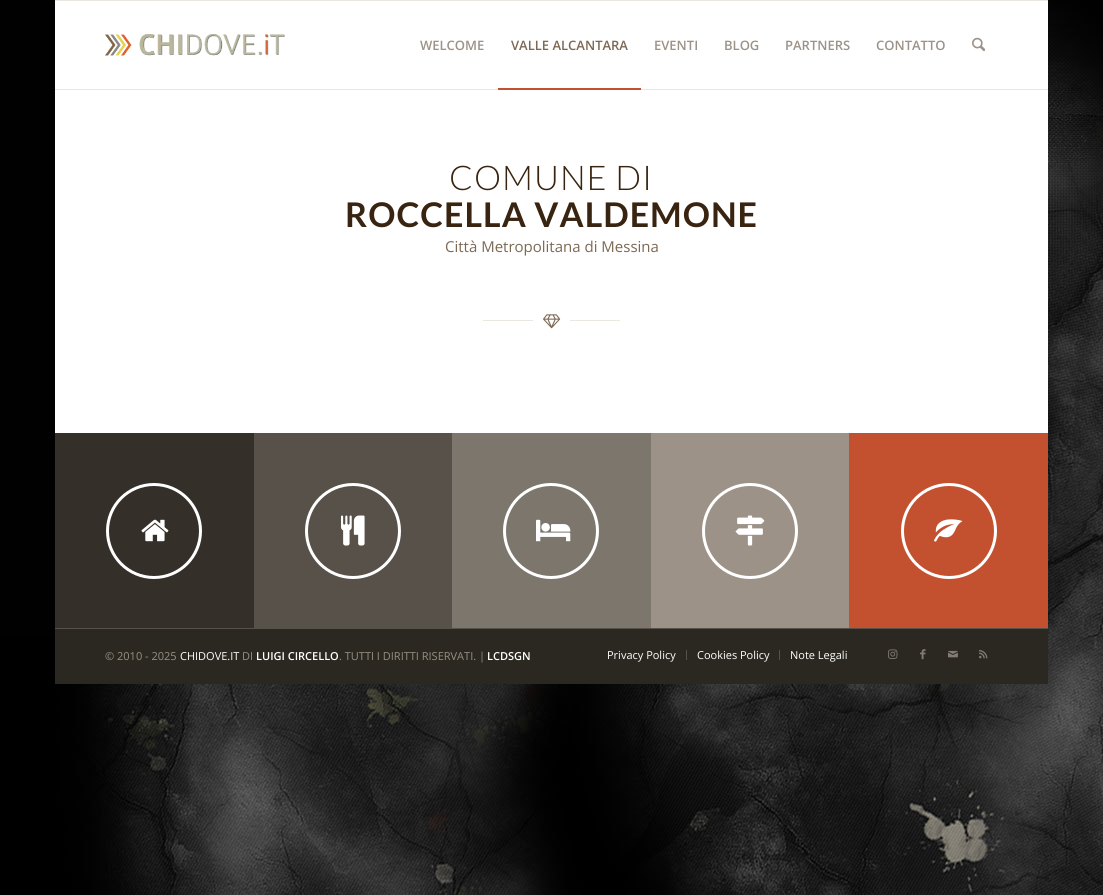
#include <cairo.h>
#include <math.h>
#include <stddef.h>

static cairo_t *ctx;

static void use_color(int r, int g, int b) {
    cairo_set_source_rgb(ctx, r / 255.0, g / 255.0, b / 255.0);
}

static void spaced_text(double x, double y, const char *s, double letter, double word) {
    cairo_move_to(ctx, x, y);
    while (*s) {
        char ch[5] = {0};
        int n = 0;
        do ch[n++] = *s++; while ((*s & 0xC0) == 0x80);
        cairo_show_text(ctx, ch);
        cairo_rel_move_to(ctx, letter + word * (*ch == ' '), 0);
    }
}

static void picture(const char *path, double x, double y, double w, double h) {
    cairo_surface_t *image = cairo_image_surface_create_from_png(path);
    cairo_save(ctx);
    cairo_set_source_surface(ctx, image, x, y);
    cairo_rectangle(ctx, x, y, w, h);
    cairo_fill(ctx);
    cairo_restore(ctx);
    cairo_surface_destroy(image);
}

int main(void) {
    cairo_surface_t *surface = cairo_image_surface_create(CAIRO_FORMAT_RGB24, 1103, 895);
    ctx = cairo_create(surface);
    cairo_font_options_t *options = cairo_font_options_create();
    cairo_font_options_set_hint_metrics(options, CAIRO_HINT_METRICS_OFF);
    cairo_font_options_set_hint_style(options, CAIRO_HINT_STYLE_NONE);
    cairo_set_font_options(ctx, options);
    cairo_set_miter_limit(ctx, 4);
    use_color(255, 255, 255);
    cairo_paint(ctx);
    picture("img1.png", 0, 0, 1103, 895);
    use_color(255, 255, 255);
    cairo_rectangle(ctx, 55, 1, 993, 432);
    cairo_fill(ctx);
    use_color(251, 251, 251);
    cairo_rectangle(ctx, 286, 11, 1, 1);
    cairo_fill(ctx);
    use_color(235, 232, 226);
    cairo_rectangle(ctx, 55, 0, 993, 1);
    cairo_fill(ctx);
    cairo_rectangle(ctx, 55, 89, 993, 1);
    cairo_fill(ctx);
    picture("img2.png", 105, 34, 180, 22);
    cairo_select_font_face(ctx, "Open Sans SemiBold", CAIRO_FONT_SLANT_NORMAL, CAIRO_FONT_WEIGHT_NORMAL);
    cairo_set_font_size(ctx, 13);
    use_color(156, 146, 136);
    cairo_move_to(ctx, 420, 50);
    cairo_show_text(ctx, "WELCOME");
    use_color(124, 104, 83);
    cairo_move_to(ctx, 511, 50);
    cairo_show_text(ctx, "VALLE ALCANTARA");
    use_color(195, 81, 47);
    cairo_rectangle(ctx, 498, 88, 143, 2);
    cairo_fill(ctx);
    use_color(156, 146, 136);
    cairo_move_to(ctx, 654, 50);
    cairo_show_text(ctx, "EVENTI");
    cairo_move_to(ctx, 724, 50);
    cairo_show_text(ctx, "BLOG");
    cairo_move_to(ctx, 785, 50);
    cairo_show_text(ctx, "PARTNERS");
    cairo_move_to(ctx, 876, 50);
    cairo_show_text(ctx, "CONTATTO");
    picture("img3.png", 972, 37, 13, 15);
    cairo_select_font_face(ctx, "Lato Light", CAIRO_FONT_SLANT_NORMAL, CAIRO_FONT_WEIGHT_NORMAL);
    cairo_set_font_size(ctx, 34);
    use_color(56, 36, 16);
    spaced_text(449, 190, "COMUNE DI", 1, 0);
    cairo_select_font_face(ctx, "Lato", CAIRO_FONT_SLANT_NORMAL, CAIRO_FONT_WEIGHT_BOLD);
    spaced_text(345, 227, "ROCCELLA VALDEMONE", 1, 0);
    cairo_select_font_face(ctx, "Open Sans", CAIRO_FONT_SLANT_NORMAL, CAIRO_FONT_WEIGHT_NORMAL);
    cairo_set_font_size(ctx, 15);
    use_color(124, 104, 83);
    cairo_move_to(ctx, 445, 252);
    cairo_show_text(ctx, "Città Metropolitana di Messina");
    use_color(235, 232, 226);
    cairo_rectangle(ctx, 483, 320, 50, 1);
    cairo_fill(ctx);
    picture("img4.png", 543, 314, 18, 15);
    cairo_rectangle(ctx, 570, 320, 50, 1);
    cairo_fill(ctx);
    use_color(52, 47, 41);
    cairo_rectangle(ctx, 55, 433, 199, 195);
    cairo_fill(ctx);
    cairo_arc(ctx, 154, 531, 46.5, 0, 2 * M_PI);
    use_color(255, 255, 255);
    cairo_set_line_width(ctx, 3);
    cairo_stroke(ctx);
    picture("img5.png", 141, 519, 28, 23);
    use_color(87, 81, 73);
    cairo_rectangle(ctx, 254, 433, 198, 195);
    cairo_fill(ctx);
    cairo_arc(ctx, 353, 531, 46.5, 0, 2 * M_PI);
    use_color(255, 255, 255);
    cairo_stroke(ctx);
    picture("img6.png", 341, 515, 24, 31);
    use_color(124, 118, 109);
    cairo_rectangle(ctx, 452, 433, 199, 195);
    cairo_fill(ctx);
    cairo_arc(ctx, 551, 531, 46.5, 0, 2 * M_PI);
    use_color(255, 255, 255);
    cairo_stroke(ctx);
    picture("img7.png", 536, 519, 35, 23);
    use_color(156, 146, 136);
    cairo_rectangle(ctx, 651, 433, 198, 195);
    cairo_fill(ctx);
    cairo_arc(ctx, 750, 531, 46.5, 0, 2 * M_PI);
    use_color(255, 255, 255);
    cairo_stroke(ctx);
    picture("img8.png", 735, 515, 30, 31);
    use_color(195, 81, 47);
    cairo_rectangle(ctx, 849, 433, 199, 195);
    cairo_fill(ctx);
    cairo_arc(ctx, 949, 531, 46.5, 0, 2 * M_PI);
    use_color(255, 255, 255);
    cairo_stroke(ctx);
    picture("img9.png", 934, 519, 29, 23);
    use_color(43, 40, 34);
    cairo_rectangle(ctx, 55, 629, 993, 55);
    cairo_fill(ctx);
    use_color(87, 81, 73);
    cairo_rectangle(ctx, 55, 628, 993, 1);
    cairo_fill(ctx);
    cairo_set_font_size(ctx, 11);
    use_color(152, 143, 129);
    cairo_move_to(ctx, 105, 660);
    cairo_show_text(ctx, "© 2010 - 2025");
    use_color(255, 255, 255);
    cairo_move_to(ctx, 180, 660);
    cairo_show_text(ctx, "CHIDOVE.IT");
    use_color(152, 143, 129);
    cairo_move_to(ctx, 242, 660);
    cairo_show_text(ctx, "DI");
    cairo_select_font_face(ctx, "Open Sans SemiBold", CAIRO_FONT_SLANT_NORMAL, CAIRO_FONT_WEIGHT_NORMAL);
    use_color(255, 255, 255);
    cairo_move_to(ctx, 256, 660);
    cairo_show_text(ctx, "LUIGI CIRCELLO");
    cairo_select_font_face(ctx, "Open Sans", CAIRO_FONT_SLANT_NORMAL, CAIRO_FONT_WEIGHT_NORMAL);
    use_color(152, 143, 129);
    cairo_move_to(ctx, 339, 660);
    cairo_show_text(ctx, ". TUTTI I DIRITTI RISERVATI. |");
    cairo_select_font_face(ctx, "Open Sans SemiBold", CAIRO_FONT_SLANT_NORMAL, CAIRO_FONT_WEIGHT_NORMAL);
    use_color(255, 255, 255);
    cairo_move_to(ctx, 487, 660);
    cairo_show_text(ctx, "LCDSGN");
    cairo_select_font_face(ctx, "Open Sans", CAIRO_FONT_SLANT_NORMAL, CAIRO_FONT_WEIGHT_NORMAL);
    cairo_move_to(ctx, 607, 659);
    cairo_show_text(ctx, "Privacy Policy");
    use_color(87, 81, 73);
    cairo_rectangle(ctx, 686, 650, 1, 10);
    cairo_fill(ctx);
    use_color(255, 255, 255);
    cairo_move_to(ctx, 697, 659);
    cairo_show_text(ctx, "Cookies Policy");
    use_color(87, 81, 73);
    cairo_rectangle(ctx, 779, 650, 1, 10);
    cairo_fill(ctx);
    use_color(255, 255, 255);
    cairo_move_to(ctx, 790, 659);
    cairo_show_text(ctx, "Note Legali");
    picture("img10.png", 888, 649, 10, 10);
    picture("img11.png", 920, 649, 6, 11);
    picture("img12.png", 948, 650, 10, 8);
    picture("img13.png", 979, 650, 9, 9);
    cairo_surface_write_to_png(surface, "result.png");
    cairo_font_options_destroy(options);
    cairo_destroy(ctx);
    cairo_surface_destroy(surface);
    return 0;
}
